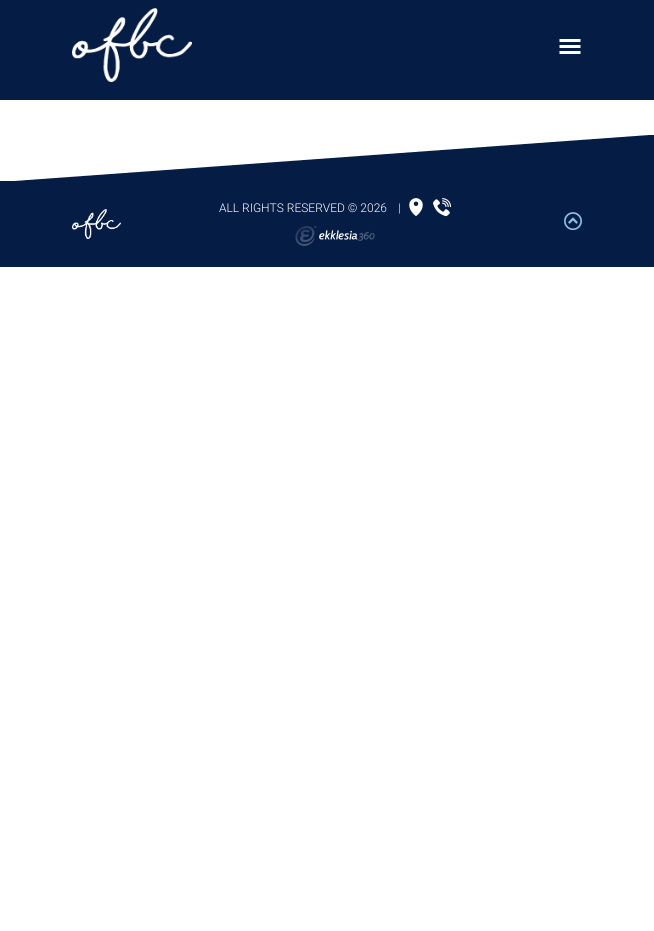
#include <cairo.h>
#include <math.h>
#include <stddef.h>

static cairo_t *ctx;

static void use_color(int r, int g, int b) {
    cairo_set_source_rgb(ctx, r / 255.0, g / 255.0, b / 255.0);
}

static void picture(const char *path, double x, double y, double w, double h) {
    cairo_surface_t *image = cairo_image_surface_create_from_png(path);
    cairo_save(ctx);
    cairo_set_source_surface(ctx, image, x, y);
    cairo_rectangle(ctx, x, y, w, h);
    cairo_fill(ctx);
    cairo_restore(ctx);
    cairo_surface_destroy(image);
}

int main(void) {
    cairo_surface_t *surface = cairo_image_surface_create(CAIRO_FORMAT_RGB24, 654, 931);
    ctx = cairo_create(surface);
    cairo_font_options_t *options = cairo_font_options_create();
    cairo_font_options_set_hint_metrics(options, CAIRO_HINT_METRICS_OFF);
    cairo_font_options_set_hint_style(options, CAIRO_HINT_STYLE_NONE);
    cairo_set_font_options(ctx, options);
    cairo_set_miter_limit(ctx, 4);
    use_color(255, 255, 255);
    cairo_paint(ctx);
    use_color(5, 28, 69);
    cairo_rectangle(ctx, 0, 0, 654, 100);
    cairo_fill(ctx);
    picture("img1.png", 72, 8, 120, 74);
    picture("img2.png", 559, 39, 22, 15);
    cairo_rectangle(ctx, 0, 181, 654, 86);
    cairo_fill(ctx);
    cairo_new_path(ctx);
    cairo_move_to(ctx, 0, 182);
    cairo_line_to(ctx, 0, 185);
    cairo_line_to(ctx, 654, 185);
    cairo_line_to(ctx, 654, 135);
    cairo_line_to(ctx, 649, 135);
    cairo_close_path(ctx);
    cairo_fill(ctx);
    picture("img3.png", 72, 209, 49, 30);
    cairo_select_font_face(ctx, "Roboto Light", CAIRO_FONT_SLANT_NORMAL, CAIRO_FONT_WEIGHT_NORMAL);
    cairo_set_font_size(ctx, 12);
    use_color(255, 255, 255);
    cairo_move_to(ctx, 219, 212);
    cairo_show_text(ctx, "ALL RIGHTS RESERVED © 2026");
    cairo_move_to(ctx, 398, 212);
    cairo_show_text(ctx, "|");
    picture("img4.png", 409, 198, 14, 18);
    picture("img5.png", 433, 198, 18, 19);
    picture("img6.png", 295, 226, 80, 20);
    picture("img7.png", 564, 212, 18, 19);
    cairo_surface_write_to_png(surface, "result.png");
    cairo_font_options_destroy(options);
    cairo_destroy(ctx);
    cairo_surface_destroy(surface);
    return 0;
}
